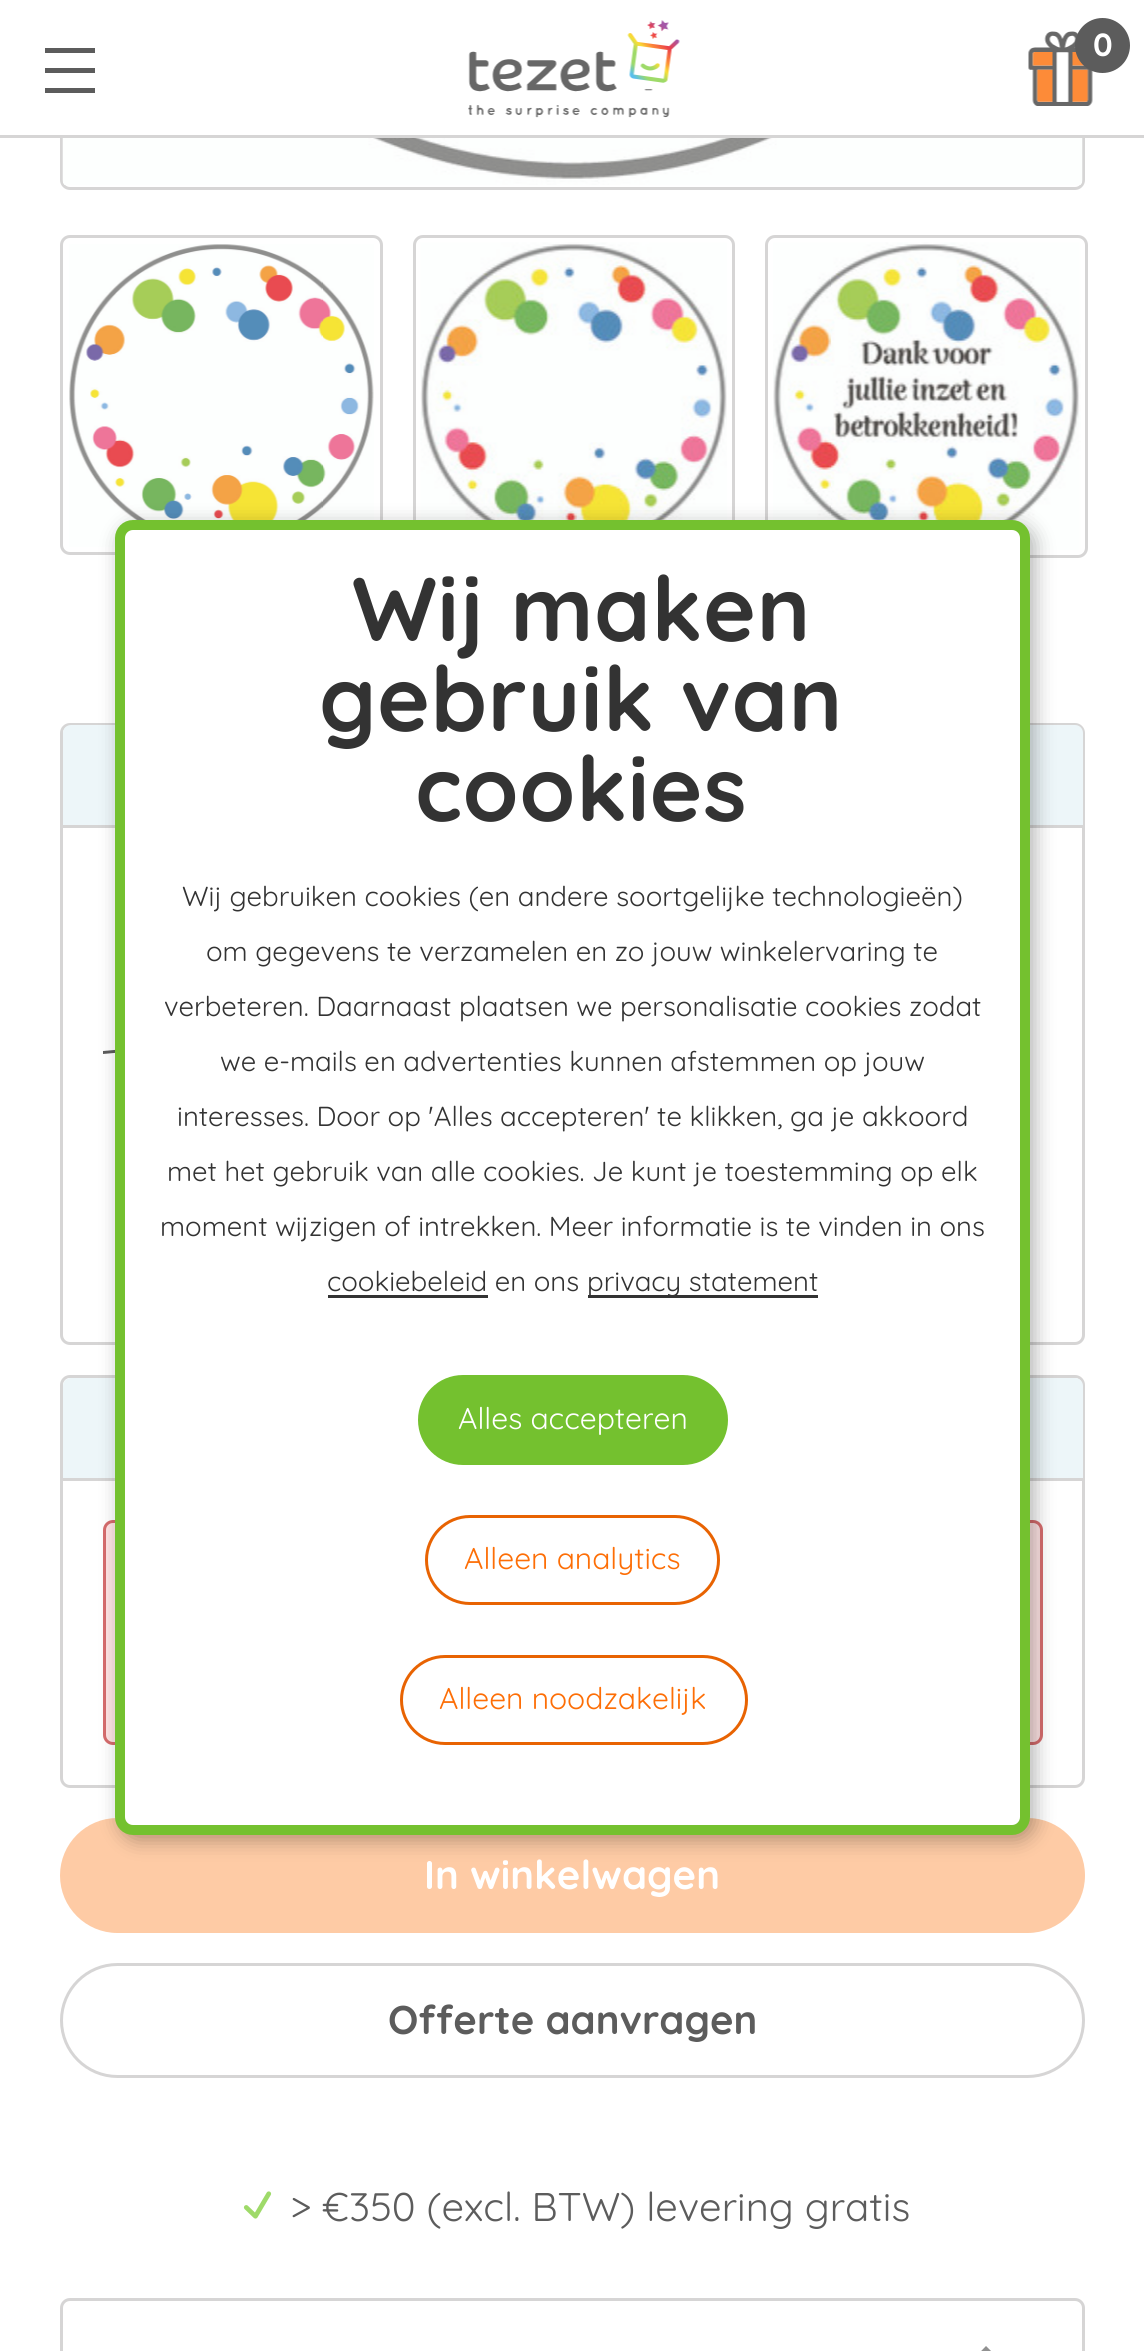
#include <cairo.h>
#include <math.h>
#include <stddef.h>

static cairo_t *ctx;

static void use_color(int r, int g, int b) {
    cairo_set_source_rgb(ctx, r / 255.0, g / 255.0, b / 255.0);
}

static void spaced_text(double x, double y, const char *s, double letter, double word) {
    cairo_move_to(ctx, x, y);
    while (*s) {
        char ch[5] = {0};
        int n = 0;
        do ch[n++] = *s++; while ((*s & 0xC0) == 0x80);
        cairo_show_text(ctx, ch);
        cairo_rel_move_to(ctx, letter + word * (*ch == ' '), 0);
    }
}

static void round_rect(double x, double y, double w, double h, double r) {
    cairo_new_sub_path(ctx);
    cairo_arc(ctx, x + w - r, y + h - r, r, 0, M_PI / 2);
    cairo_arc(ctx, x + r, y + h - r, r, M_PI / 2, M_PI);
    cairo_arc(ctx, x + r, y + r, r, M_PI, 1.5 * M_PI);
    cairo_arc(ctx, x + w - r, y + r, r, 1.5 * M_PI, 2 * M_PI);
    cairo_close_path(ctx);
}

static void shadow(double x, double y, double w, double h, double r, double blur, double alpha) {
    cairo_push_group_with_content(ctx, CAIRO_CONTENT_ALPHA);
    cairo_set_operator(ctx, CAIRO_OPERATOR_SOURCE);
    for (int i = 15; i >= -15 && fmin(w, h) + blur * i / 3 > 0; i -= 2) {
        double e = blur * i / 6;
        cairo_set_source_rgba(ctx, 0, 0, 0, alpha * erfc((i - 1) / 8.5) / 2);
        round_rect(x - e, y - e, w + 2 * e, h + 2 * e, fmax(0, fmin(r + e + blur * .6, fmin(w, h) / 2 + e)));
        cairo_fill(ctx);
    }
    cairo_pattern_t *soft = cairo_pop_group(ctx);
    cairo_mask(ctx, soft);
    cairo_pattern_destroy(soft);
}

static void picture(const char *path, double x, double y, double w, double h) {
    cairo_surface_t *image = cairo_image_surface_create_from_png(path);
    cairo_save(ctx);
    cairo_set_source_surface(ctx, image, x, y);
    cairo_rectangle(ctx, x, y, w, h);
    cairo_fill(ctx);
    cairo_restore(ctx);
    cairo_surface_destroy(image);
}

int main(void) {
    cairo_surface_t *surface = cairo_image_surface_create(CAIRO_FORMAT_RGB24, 1144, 2351);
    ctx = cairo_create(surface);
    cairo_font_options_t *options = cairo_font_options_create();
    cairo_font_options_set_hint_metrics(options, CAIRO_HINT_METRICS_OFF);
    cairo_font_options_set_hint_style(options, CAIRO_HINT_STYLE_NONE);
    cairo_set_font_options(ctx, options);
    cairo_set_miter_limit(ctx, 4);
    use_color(255, 255, 255);
    cairo_paint(ctx);
    round_rect(61.5, -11.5, 1022, 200, 8.5);
    use_color(214, 213, 213);
    cairo_set_line_width(ctx, 3);
    cairo_stroke(ctx);
    use_color(255, 255, 255);
    cairo_rectangle(ctx, 60, 0, 1025, 135);
    cairo_fill(ctx);
    use_color(214, 213, 213);
    cairo_rectangle(ctx, 0, 135, 1144, 3);
    cairo_fill(ctx);
    picture("img1.png", 468, 20, 212, 98);
    picture("img2.png", 1028, 31, 65, 75);
    use_color(92, 92, 92);
    cairo_arc(ctx, 1102.5, 45.5, 27.5, 0, 2 * M_PI);
    cairo_fill(ctx);
    cairo_select_font_face(ctx, "Quicksand", CAIRO_FONT_SLANT_NORMAL, CAIRO_FONT_WEIGHT_BOLD);
    cairo_set_font_size(ctx, 32);
    use_color(255, 255, 255);
    cairo_move_to(ctx, 1093, 56);
    cairo_show_text(ctx, "0");
    use_color(92, 92, 92);
    cairo_rectangle(ctx, 45, 68, 50, 5);
    cairo_fill(ctx);
    cairo_rectangle(ctx, 45, 48, 50, 5);
    cairo_fill(ctx);
    cairo_rectangle(ctx, 45, 88, 50, 5);
    cairo_fill(ctx);
    round_rect(61.5, 236.5, 320, 317, 8.5);
    use_color(214, 213, 213);
    cairo_stroke(ctx);
    picture("img4.png", 69, 244, 305, 303);
    round_rect(414.5, 236.5, 319, 320, 8.5);
    cairo_stroke(ctx);
    picture("img5.png", 420, 242, 307, 278);
    round_rect(766.5, 236.5, 320, 320, 8.5);
    cairo_stroke(ctx);
    picture("img6.png", 773, 242, 308, 308);
    round_rect(61.5, 724.5, 1022, 619, 8.5);
    cairo_stroke(ctx);
    use_color(237, 246, 249);
    cairo_new_path(ctx);
    cairo_move_to(ctx, 71, 725);
    cairo_line_to(ctx, 1075, 725);
    cairo_curve_to(ctx, 1079.5, 725, 1083, 728.5, 1083, 733);
    cairo_line_to(ctx, 1083, 828);
    cairo_line_to(ctx, 63, 828);
    cairo_line_to(ctx, 63, 733);
    cairo_curve_to(ctx, 63, 728.5, 66.5, 725, 71, 725);
    cairo_close_path(ctx);
    cairo_fill(ctx);
    use_color(214, 213, 213);
    cairo_rectangle(ctx, 63, 825, 1020, 3);
    cairo_fill(ctx);
    use_color(92, 92, 92);
    cairo_new_path(ctx);
    cairo_move_to(ctx, 103, 1051);
    cairo_line_to(ctx, 212, 1041);
    cairo_line_to(ctx, 212, 1044);
    cairo_line_to(ctx, 103, 1054);
    cairo_close_path(ctx);
    cairo_fill(ctx);
    round_rect(61.5, 1376.5, 1022, 410, 8.5);
    use_color(214, 213, 213);
    cairo_stroke(ctx);
    use_color(237, 246, 249);
    cairo_new_path(ctx);
    cairo_move_to(ctx, 71, 1378);
    cairo_line_to(ctx, 1075, 1378);
    cairo_curve_to(ctx, 1079.5, 1378, 1083, 1381.5, 1083, 1386);
    cairo_line_to(ctx, 1083, 1480);
    cairo_line_to(ctx, 63, 1480);
    cairo_line_to(ctx, 63, 1386);
    cairo_curve_to(ctx, 63, 1381.5, 66.5, 1378, 71, 1378);
    cairo_close_path(ctx);
    cairo_fill(ctx);
    use_color(214, 213, 213);
    cairo_rectangle(ctx, 63, 1478, 1020, 3);
    cairo_fill(ctx);
    use_color(255, 228, 228);
    round_rect(104.5, 1521.5, 937, 222, 8.5);
    cairo_fill_preserve(ctx);
    use_color(214, 108, 109);
    cairo_stroke(ctx);
    use_color(254, 203, 165);
    round_rect(60, 1818, 1025, 115, 57.5);
    cairo_fill(ctx);
    use_color(0, 0, 0);
    shadow(120, 525, 915, 1315, 18, 10, 0.3);
    use_color(255, 255, 255);
    round_rect(120, 525, 905, 1305, 13);
    cairo_fill_preserve(ctx);
    use_color(116, 193, 47);
    cairo_set_line_width(ctx, 10);
    cairo_stroke(ctx);
    cairo_set_font_size(ctx, 90);
    use_color(51, 51, 51);
    spaced_text(352, 641, "Wij maken", 0.6, 0);
    spaced_text(319, 731, "gebruik van", 0.6, 0);
    spaced_text(415, 821, "cookies", 0.6, 0);
    cairo_select_font_face(ctx, "Quicksand", CAIRO_FONT_SLANT_NORMAL, CAIRO_FONT_WEIGHT_NORMAL);
    cairo_set_font_size(ctx, 27.5);
    cairo_move_to(ctx, 182, 906);
    cairo_show_text(ctx, "Wij gebruiken cookies (en andere soortgelijke technologieën)");
    cairo_move_to(ctx, 206, 961);
    cairo_show_text(ctx, "om gegevens te verzamelen en zo jouw winkelervaring te");
    cairo_move_to(ctx, 164, 1016);
    cairo_show_text(ctx, "verbeteren. Daarnaast plaatsen we personalisatie cookies zodat");
    cairo_move_to(ctx, 220, 1071);
    cairo_show_text(ctx, "we e-mails en advertenties kunnen afstemmen op jouw");
    cairo_move_to(ctx, 177, 1126);
    cairo_show_text(ctx, "interesses. Door op 'Alles accepteren' te klikken, ga je akkoord");
    cairo_move_to(ctx, 167, 1181);
    cairo_show_text(ctx, "met het gebruik van alle cookies. Je kunt je toestemming op elk");
    cairo_move_to(ctx, 160, 1236);
    cairo_show_text(ctx, "moment wijzigen of intrekken. Meer informatie is te vinden in ons");
    cairo_move_to(ctx, 327, 1291);
    cairo_show_text(ctx, "cookiebeleid en ons");
    cairo_rectangle(ctx, 328, 1295, 160, 3);
    cairo_fill(ctx);
    cairo_rectangle(ctx, 588, 1295, 230, 3);
    cairo_fill(ctx);
    cairo_move_to(ctx, 587, 1291);
    cairo_show_text(ctx, "privacy statement");
    use_color(116, 193, 47);
    round_rect(419.5, 1376.5, 307, 87, 43.5);
    cairo_fill_preserve(ctx);
    cairo_set_line_width(ctx, 3);
    cairo_stroke(ctx);
    cairo_set_font_size(ctx, 30);
    use_color(255, 255, 255);
    cairo_move_to(ctx, 458, 1429);
    cairo_show_text(ctx, "Alles accepteren");
    round_rect(426.5, 1516.5, 292, 87, 43.5);
    use_color(232, 99, 2);
    cairo_stroke(ctx);
    use_color(253, 110, 6);
    cairo_move_to(ctx, 464, 1569);
    cairo_show_text(ctx, "Alleen analytics");
    round_rect(401.5, 1656.5, 345, 87, 43.5);
    use_color(232, 99, 2);
    cairo_stroke(ctx);
    use_color(253, 110, 6);
    cairo_move_to(ctx, 439, 1709);
    cairo_show_text(ctx, "Alleen noodzakelijk");
    picture("img3.png", 62, 138, 1021, 47);
    cairo_select_font_face(ctx, "Quicksand", CAIRO_FONT_SLANT_NORMAL, CAIRO_FONT_WEIGHT_BOLD);
    cairo_set_font_size(ctx, 40);
    use_color(255, 255, 255);
    cairo_move_to(ctx, 424, 1889);
    cairo_show_text(ctx, "In winkelwagen");
    round_rect(61.5, 1964.5, 1022, 112, 56);
    use_color(214, 213, 213);
    cairo_stroke(ctx);
    use_color(92, 92, 92);
    cairo_move_to(ctx, 388, 2034);
    cairo_show_text(ctx, "Offerte aanvragen");
    picture("img7.png", 243, 2191, 29, 28);
    cairo_select_font_face(ctx, "Quicksand", CAIRO_FONT_SLANT_NORMAL, CAIRO_FONT_WEIGHT_NORMAL);
    cairo_move_to(ctx, 290, 2221);
    cairo_show_text(ctx, "> €350 (excl. BTW) levering gratis");
    round_rect(61.5, 2299.5, 1022, 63, 8.5);
    use_color(214, 213, 213);
    cairo_stroke(ctx);
    use_color(145, 145, 145);
    cairo_new_path(ctx);
    cairo_move_to(ctx, 967.5, 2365);
    cairo_line_to(ctx, 972, 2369.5);
    cairo_line_to(ctx, 986, 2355);
    cairo_line_to(ctx, 1000.5, 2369.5);
    cairo_line_to(ctx, 1005, 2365);
    cairo_line_to(ctx, 986, 2346);
    cairo_close_path(ctx);
    cairo_fill(ctx);
    cairo_surface_write_to_png(surface, "result.png");
    cairo_font_options_destroy(options);
    cairo_destroy(ctx);
    cairo_surface_destroy(surface);
    return 0;
}
